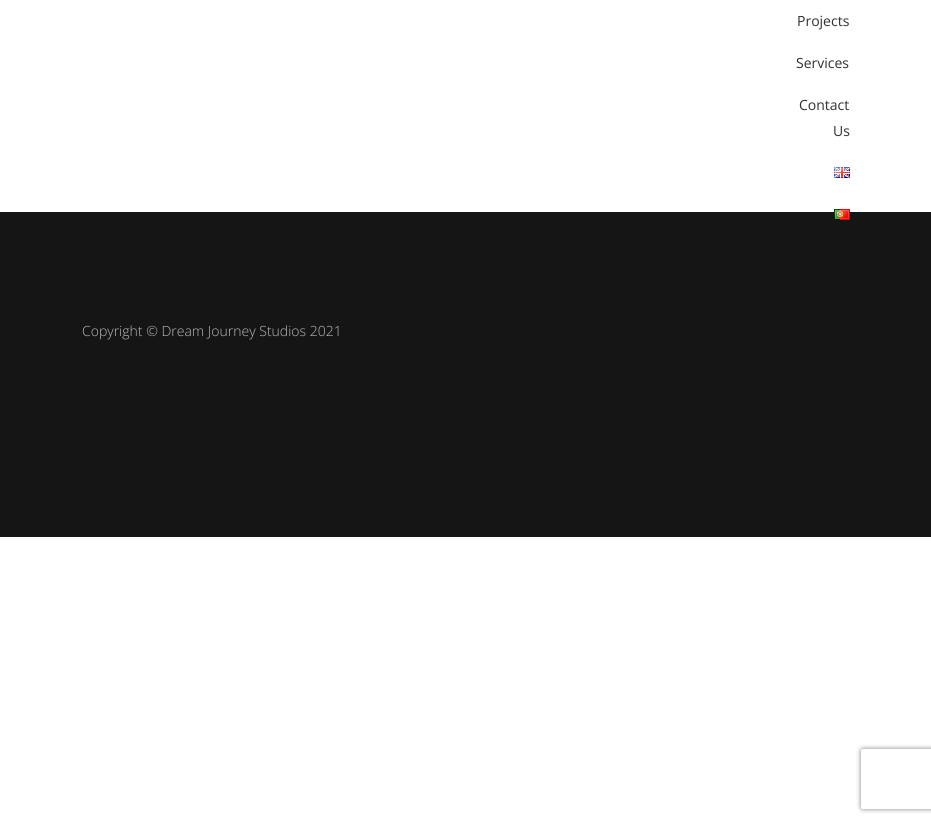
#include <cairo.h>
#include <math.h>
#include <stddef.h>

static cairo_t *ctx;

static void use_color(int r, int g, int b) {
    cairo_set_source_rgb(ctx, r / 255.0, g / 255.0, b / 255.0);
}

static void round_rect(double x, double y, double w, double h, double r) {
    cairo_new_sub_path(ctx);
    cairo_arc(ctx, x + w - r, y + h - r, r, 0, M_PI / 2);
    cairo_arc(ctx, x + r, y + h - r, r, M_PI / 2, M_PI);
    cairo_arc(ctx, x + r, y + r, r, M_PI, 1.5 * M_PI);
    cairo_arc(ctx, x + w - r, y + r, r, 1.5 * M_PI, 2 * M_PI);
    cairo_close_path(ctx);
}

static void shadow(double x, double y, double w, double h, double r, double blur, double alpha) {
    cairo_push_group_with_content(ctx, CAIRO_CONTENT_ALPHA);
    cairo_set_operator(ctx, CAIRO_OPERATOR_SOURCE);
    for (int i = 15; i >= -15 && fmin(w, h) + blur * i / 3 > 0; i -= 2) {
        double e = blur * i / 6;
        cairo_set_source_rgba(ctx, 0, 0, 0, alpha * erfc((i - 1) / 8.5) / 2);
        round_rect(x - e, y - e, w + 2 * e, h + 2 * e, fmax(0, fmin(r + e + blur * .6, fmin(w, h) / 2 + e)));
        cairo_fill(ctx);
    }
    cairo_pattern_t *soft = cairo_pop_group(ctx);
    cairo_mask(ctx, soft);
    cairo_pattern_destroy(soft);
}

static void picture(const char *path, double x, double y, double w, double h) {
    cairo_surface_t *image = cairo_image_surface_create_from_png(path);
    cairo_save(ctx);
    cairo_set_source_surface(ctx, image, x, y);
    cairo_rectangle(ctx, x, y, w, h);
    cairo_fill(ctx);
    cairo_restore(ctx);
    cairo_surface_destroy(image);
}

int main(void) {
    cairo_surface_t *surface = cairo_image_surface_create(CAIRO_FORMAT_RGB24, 931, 823);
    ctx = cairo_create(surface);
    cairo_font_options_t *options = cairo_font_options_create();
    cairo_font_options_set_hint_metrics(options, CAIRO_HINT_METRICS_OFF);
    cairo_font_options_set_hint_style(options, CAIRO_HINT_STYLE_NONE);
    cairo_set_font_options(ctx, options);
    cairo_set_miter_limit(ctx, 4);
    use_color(255, 255, 255);
    cairo_paint(ctx);
    cairo_select_font_face(ctx, "Open Sans", CAIRO_FONT_SLANT_NORMAL, CAIRO_FONT_WEIGHT_NORMAL);
    cairo_set_font_size(ctx, 14);
    use_color(48, 48, 48);
    cairo_move_to(ctx, 797, 26);
    cairo_show_text(ctx, "Projects");
    cairo_move_to(ctx, 796, 68);
    cairo_show_text(ctx, "Services");
    cairo_move_to(ctx, 799, 110);
    cairo_show_text(ctx, "Contact");
    cairo_move_to(ctx, 833, 136);
    cairo_show_text(ctx, "Us");
    picture("img1.png", 834, 167, 16, 11);
    use_color(21, 21, 21);
    cairo_rectangle(ctx, 0, 212, 931, 325);
    cairo_fill(ctx);
    picture("img2.png", 834, 209, 16, 11);
    cairo_select_font_face(ctx, "Open Sans Light", CAIRO_FONT_SLANT_NORMAL, CAIRO_FONT_WEIGHT_NORMAL);
    use_color(187, 187, 187);
    cairo_move_to(ctx, 82, 336);
    cairo_show_text(ctx, "Copyright © Dream Journey Studios 2021");
    cairo_save(ctx);
    cairo_set_fill_rule(ctx, CAIRO_FILL_RULE_EVEN_ODD);
    cairo_new_path(ctx);
    cairo_move_to(ctx, 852, 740);
    cairo_line_to(ctx, 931, 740);
    cairo_line_to(ctx, 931, 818);
    cairo_line_to(ctx, 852, 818);
    cairo_close_path(ctx);
    cairo_move_to(ctx, 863, 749);
    cairo_line_to(ctx, 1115, 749);
    cairo_curve_to(ctx, 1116, 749, 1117, 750, 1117, 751);
    cairo_line_to(ctx, 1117, 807);
    cairo_curve_to(ctx, 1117, 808, 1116, 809, 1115, 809);
    cairo_line_to(ctx, 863, 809);
    cairo_curve_to(ctx, 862, 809, 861, 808, 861, 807);
    cairo_line_to(ctx, 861, 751);
    cairo_curve_to(ctx, 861, 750, 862, 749, 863, 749);
    cairo_close_path(ctx);
    cairo_clip(ctx);
    use_color(128, 128, 128);
    shadow(861, 749, 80, 60, 2, 2.5, 1);
    cairo_restore(ctx);
    cairo_surface_write_to_png(surface, "result.png");
    cairo_font_options_destroy(options);
    cairo_destroy(ctx);
    cairo_surface_destroy(surface);
    return 0;
}
